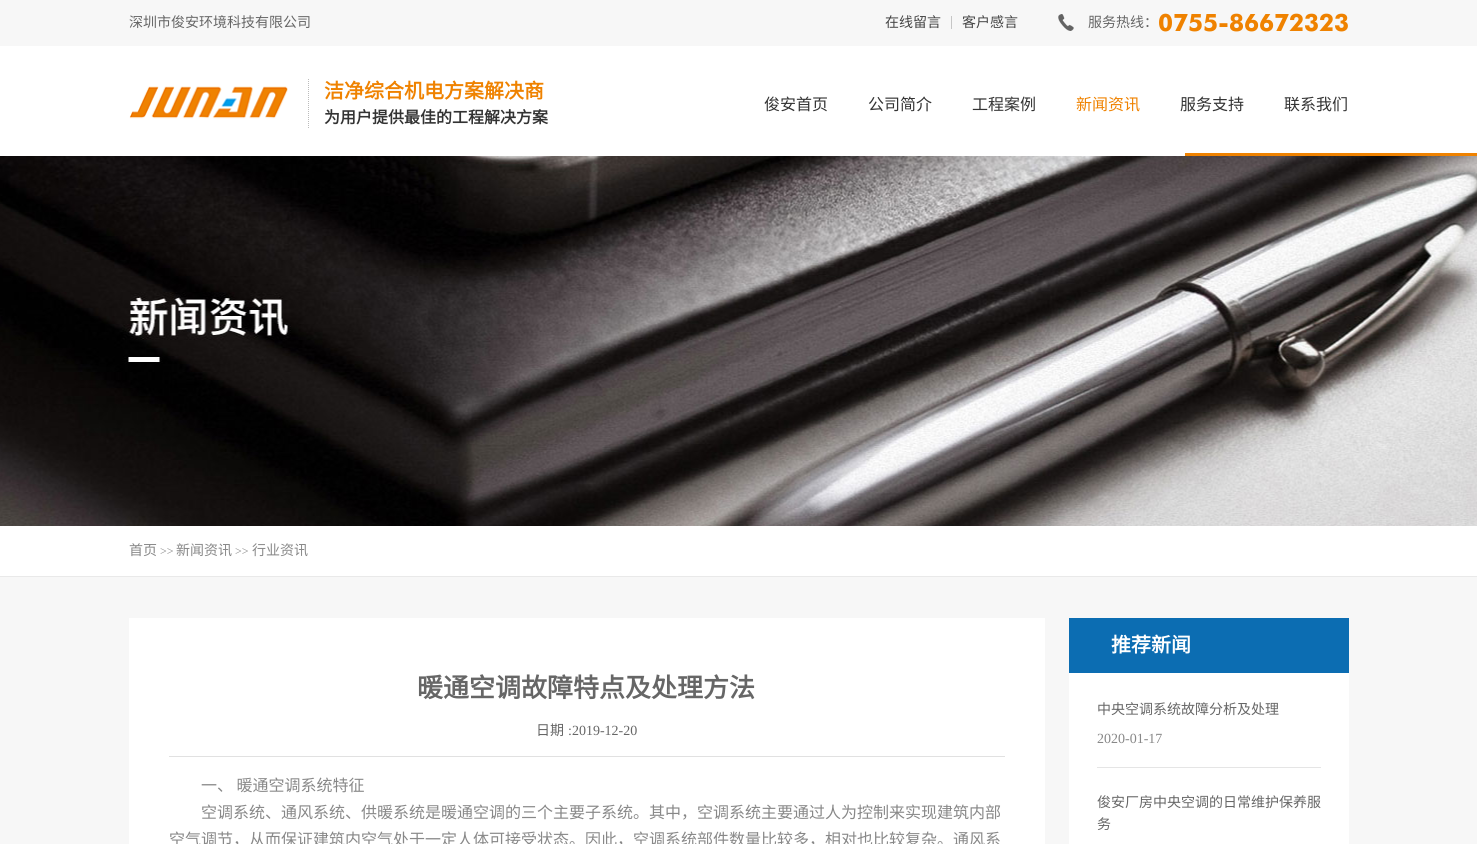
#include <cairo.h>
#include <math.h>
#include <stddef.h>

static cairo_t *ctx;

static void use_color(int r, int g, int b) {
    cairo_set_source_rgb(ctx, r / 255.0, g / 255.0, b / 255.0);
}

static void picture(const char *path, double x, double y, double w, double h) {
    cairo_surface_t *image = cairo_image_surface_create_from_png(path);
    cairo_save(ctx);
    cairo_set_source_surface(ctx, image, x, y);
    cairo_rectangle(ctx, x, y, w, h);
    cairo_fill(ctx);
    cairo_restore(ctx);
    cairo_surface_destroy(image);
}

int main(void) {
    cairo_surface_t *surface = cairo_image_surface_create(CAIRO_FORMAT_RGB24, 1477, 844);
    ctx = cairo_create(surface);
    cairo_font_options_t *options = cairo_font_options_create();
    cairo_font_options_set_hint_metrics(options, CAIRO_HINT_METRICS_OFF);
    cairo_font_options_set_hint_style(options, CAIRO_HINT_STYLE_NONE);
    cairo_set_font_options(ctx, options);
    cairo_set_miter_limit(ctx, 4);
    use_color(247, 247, 247);
    cairo_paint(ctx);
    cairo_select_font_face(ctx, "Noto Sans CJK SC", CAIRO_FONT_SLANT_NORMAL, CAIRO_FONT_WEIGHT_NORMAL);
    cairo_set_font_size(ctx, 14);
    use_color(102, 102, 102);
    cairo_move_to(ctx, 129, 27);
    cairo_show_text(ctx, "深圳市俊安环境科技有限公司");
    use_color(198, 198, 198);
    cairo_rectangle(ctx, 951, 16, 1, 13);
    cairo_fill(ctx);
    use_color(68, 68, 68);
    cairo_move_to(ctx, 885, 27);
    cairo_show_text(ctx, "在线留言");
    cairo_move_to(ctx, 962, 27);
    cairo_show_text(ctx, "客户感言");
    picture("img1.png", 1058, 14, 16, 17);
    use_color(102, 102, 102);
    cairo_move_to(ctx, 1088, 27);
    cairo_show_text(ctx, "服务热线：");
    cairo_select_font_face(ctx, "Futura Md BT", CAIRO_FONT_SLANT_NORMAL, CAIRO_FONT_WEIGHT_BOLD);
    cairo_set_font_size(ctx, 24);
    use_color(239, 130, 0);
    cairo_move_to(ctx, 1158, 31);
    cairo_show_text(ctx, "0755-86672323");
    use_color(255, 255, 255);
    cairo_rectangle(ctx, 0, 46, 1477, 110);
    cairo_fill(ctx);
    cairo_new_path(ctx);
    cairo_move_to(ctx, 308.5, 79);
    cairo_line_to(ctx, 308.5, 128);
    use_color(187, 187, 187);
    cairo_set_line_width(ctx, 1);
    cairo_set_dash(ctx, (double[]){1, 1}, 2, 0);
    cairo_stroke(ctx);
    picture("img2.png", 129, 86, 159, 33);
    cairo_select_font_face(ctx, "Noto Sans CJK SC", CAIRO_FONT_SLANT_NORMAL, CAIRO_FONT_WEIGHT_BOLD);
    cairo_set_font_size(ctx, 20);
    use_color(239, 130, 0);
    cairo_move_to(ctx, 324, 98);
    cairo_show_text(ctx, "洁净综合机电方案解决商");
    cairo_set_font_size(ctx, 16);
    use_color(51, 51, 51);
    cairo_move_to(ctx, 324, 123);
    cairo_show_text(ctx, "为用户提供最佳的工程解决方案");
    cairo_select_font_face(ctx, "Noto Sans CJK SC", CAIRO_FONT_SLANT_NORMAL, CAIRO_FONT_WEIGHT_NORMAL);
    cairo_move_to(ctx, 764, 110);
    cairo_show_text(ctx, "俊安首页");
    cairo_move_to(ctx, 868, 110);
    cairo_show_text(ctx, "公司简介");
    cairo_move_to(ctx, 972, 110);
    cairo_show_text(ctx, "工程案例");
    use_color(239, 130, 0);
    cairo_move_to(ctx, 1076, 110);
    cairo_show_text(ctx, "新闻资讯");
    use_color(51, 51, 51);
    cairo_move_to(ctx, 1180, 110);
    cairo_show_text(ctx, "服务支持");
    cairo_move_to(ctx, 1284, 110);
    cairo_show_text(ctx, "联系我们");
    use_color(239, 130, 0);
    cairo_rectangle(ctx, 1185, 153, 292, 3);
    cairo_fill(ctx);
    picture("img3.png", 0, 156, 1477, 370);
    use_color(255, 255, 255);
    cairo_rectangle(ctx, 0, 526, 1477, 50);
    cairo_fill(ctx);
    use_color(233, 233, 233);
    cairo_rectangle(ctx, 0, 576, 1477, 1);
    cairo_fill(ctx);
    cairo_set_font_size(ctx, 14);
    use_color(136, 136, 136);
    cairo_move_to(ctx, 129, 555);
    cairo_show_text(ctx, "首页");
    cairo_select_font_face(ctx, "Liberation Serif", CAIRO_FONT_SLANT_NORMAL, CAIRO_FONT_WEIGHT_NORMAL);
    cairo_set_font_size(ctx, 12);
    cairo_move_to(ctx, 160, 555);
    cairo_show_text(ctx, ">>");
    cairo_select_font_face(ctx, "Noto Sans CJK SC", CAIRO_FONT_SLANT_NORMAL, CAIRO_FONT_WEIGHT_NORMAL);
    cairo_set_font_size(ctx, 14);
    cairo_move_to(ctx, 176, 555);
    cairo_show_text(ctx, "新闻资讯");
    cairo_select_font_face(ctx, "Liberation Serif", CAIRO_FONT_SLANT_NORMAL, CAIRO_FONT_WEIGHT_NORMAL);
    cairo_set_font_size(ctx, 12);
    cairo_move_to(ctx, 235, 555);
    cairo_show_text(ctx, ">>");
    cairo_select_font_face(ctx, "Noto Sans CJK SC", CAIRO_FONT_SLANT_NORMAL, CAIRO_FONT_WEIGHT_NORMAL);
    cairo_set_font_size(ctx, 14);
    cairo_move_to(ctx, 252, 555);
    cairo_show_text(ctx, "行业资讯");
    use_color(255, 255, 255);
    cairo_rectangle(ctx, 129, 618, 916, 226);
    cairo_fill(ctx);
    use_color(225, 225, 225);
    cairo_rectangle(ctx, 169, 756, 836, 1);
    cairo_fill(ctx);
    cairo_select_font_face(ctx, "Noto Sans CJK SC", CAIRO_FONT_SLANT_NORMAL, CAIRO_FONT_WEIGHT_BOLD);
    cairo_set_font_size(ctx, 26);
    use_color(102, 102, 102);
    cairo_move_to(ctx, 417, 697);
    cairo_show_text(ctx, "暖通空调故障特点及处理方法");
    cairo_select_font_face(ctx, "Noto Sans CJK SC", CAIRO_FONT_SLANT_NORMAL, CAIRO_FONT_WEIGHT_NORMAL);
    cairo_set_font_size(ctx, 14);
    cairo_move_to(ctx, 536, 735);
    cairo_show_text(ctx, "日期");
    cairo_select_font_face(ctx, "Liberation Serif", CAIRO_FONT_SLANT_NORMAL, CAIRO_FONT_WEIGHT_NORMAL);
    cairo_move_to(ctx, 568, 735);
    cairo_show_text(ctx, ":2019-12-20");
    cairo_select_font_face(ctx, "Noto Sans CJK SC", CAIRO_FONT_SLANT_NORMAL, CAIRO_FONT_WEIGHT_NORMAL);
    cairo_set_font_size(ctx, 16);
    use_color(136, 136, 136);
    cairo_move_to(ctx, 201, 791);
    cairo_show_text(ctx, "一、 暖通空调系统特征");
    cairo_move_to(ctx, 201, 818);
    cairo_show_text(ctx, "空调系统、通风系统、供暖系统是暖通空调的三个主要子系统。其中，空调系统主要通过人为控制来实现建筑内部");
    cairo_move_to(ctx, 169, 845);
    cairo_show_text(ctx, "空气调节，从而保证建筑内空气处于一定人体可接受状态。因此，空调系统部件数量比较多，相对也比较复杂。通风系");
    use_color(255, 255, 255);
    cairo_rectangle(ctx, 1069, 673, 280, 171);
    cairo_fill(ctx);
    use_color(12, 109, 178);
    cairo_rectangle(ctx, 1069, 618, 280, 55);
    cairo_fill(ctx);
    cairo_select_font_face(ctx, "Noto Sans CJK SC", CAIRO_FONT_SLANT_NORMAL, CAIRO_FONT_WEIGHT_BOLD);
    cairo_set_font_size(ctx, 20);
    use_color(255, 255, 255);
    cairo_move_to(ctx, 1111, 652);
    cairo_show_text(ctx, "推荐新闻");
    cairo_select_font_face(ctx, "Noto Sans CJK SC", CAIRO_FONT_SLANT_NORMAL, CAIRO_FONT_WEIGHT_NORMAL);
    cairo_set_font_size(ctx, 14);
    use_color(102, 102, 102);
    cairo_move_to(ctx, 1097, 714);
    cairo_show_text(ctx, "中央空调系统故障分析及处理");
    cairo_select_font_face(ctx, "Liberation Serif", CAIRO_FONT_SLANT_NORMAL, CAIRO_FONT_WEIGHT_NORMAL);
    use_color(136, 136, 136);
    cairo_move_to(ctx, 1097, 743);
    cairo_show_text(ctx, "2020-01-17");
    use_color(229, 229, 229);
    cairo_rectangle(ctx, 1097, 767, 224, 1);
    cairo_fill(ctx);
    cairo_select_font_face(ctx, "Noto Sans CJK SC", CAIRO_FONT_SLANT_NORMAL, CAIRO_FONT_WEIGHT_NORMAL);
    use_color(102, 102, 102);
    cairo_move_to(ctx, 1097, 807);
    cairo_show_text(ctx, "俊安厂房中央空调的日常维护保养服");
    cairo_move_to(ctx, 1097, 829);
    cairo_show_text(ctx, "务");
    cairo_surface_write_to_png(surface, "result.png");
    cairo_font_options_destroy(options);
    cairo_destroy(ctx);
    cairo_surface_destroy(surface);
    return 0;
}
